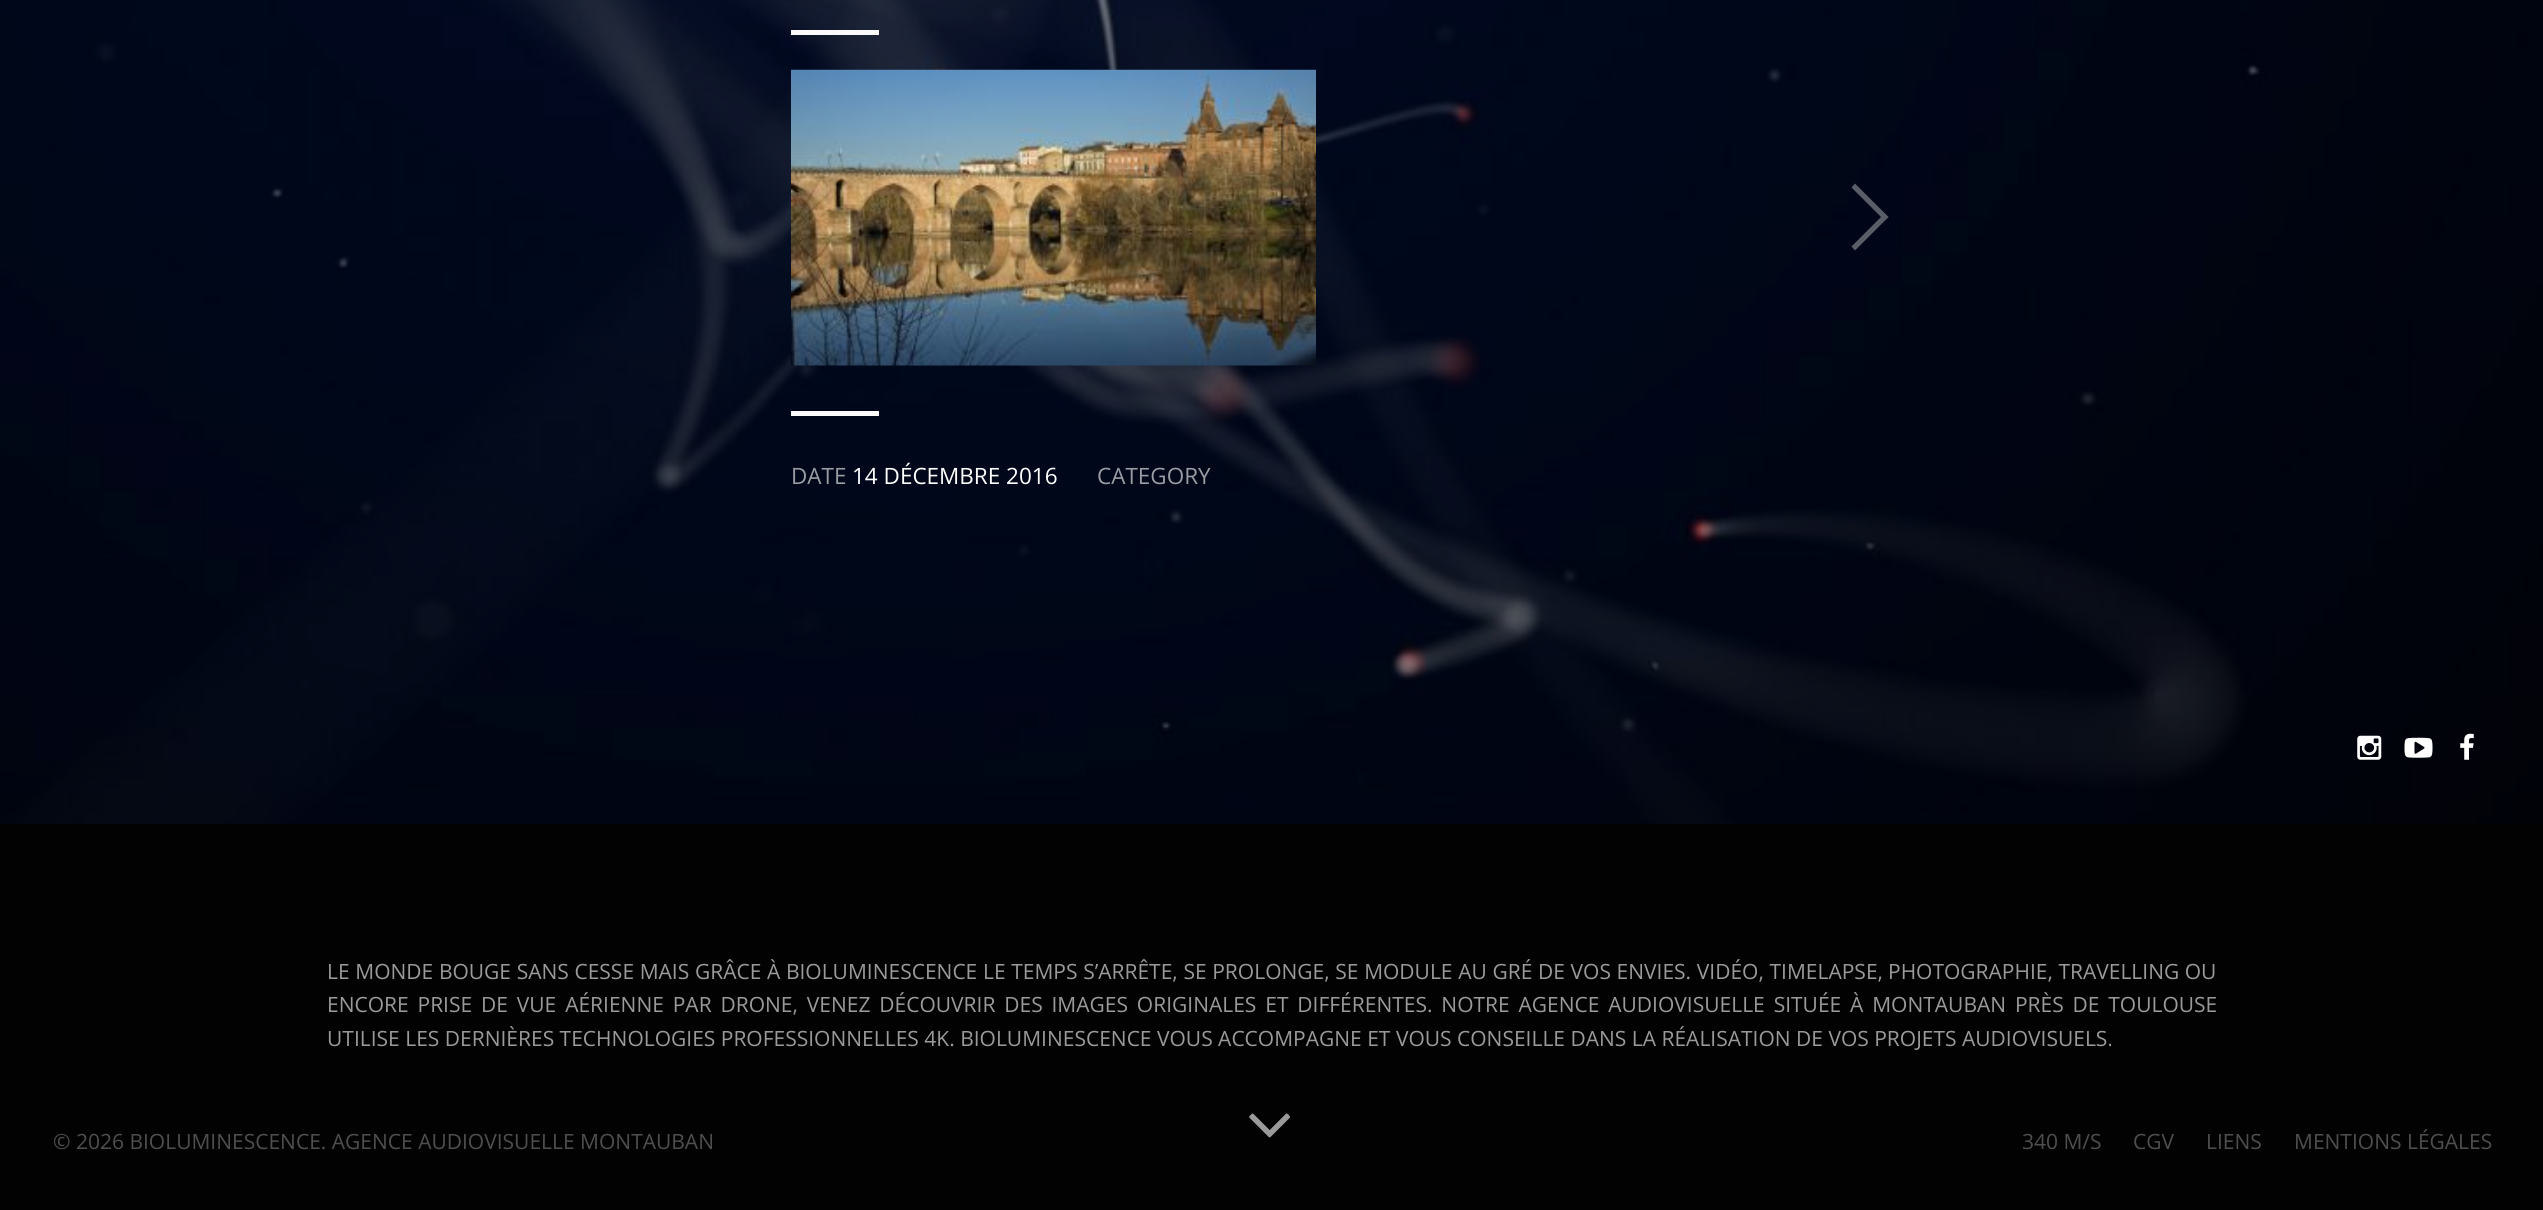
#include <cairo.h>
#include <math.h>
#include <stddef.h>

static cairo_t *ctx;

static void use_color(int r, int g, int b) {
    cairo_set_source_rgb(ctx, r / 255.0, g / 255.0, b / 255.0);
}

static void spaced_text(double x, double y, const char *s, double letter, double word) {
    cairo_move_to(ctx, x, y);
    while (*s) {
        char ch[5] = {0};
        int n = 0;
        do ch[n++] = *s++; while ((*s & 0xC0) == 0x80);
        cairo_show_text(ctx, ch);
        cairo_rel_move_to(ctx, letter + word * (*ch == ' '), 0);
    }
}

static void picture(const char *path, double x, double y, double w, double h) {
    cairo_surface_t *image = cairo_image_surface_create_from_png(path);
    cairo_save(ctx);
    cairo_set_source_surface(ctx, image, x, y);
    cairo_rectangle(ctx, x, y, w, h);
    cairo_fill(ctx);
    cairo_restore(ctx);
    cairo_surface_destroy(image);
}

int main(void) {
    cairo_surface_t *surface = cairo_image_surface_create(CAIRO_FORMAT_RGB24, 2543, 1210);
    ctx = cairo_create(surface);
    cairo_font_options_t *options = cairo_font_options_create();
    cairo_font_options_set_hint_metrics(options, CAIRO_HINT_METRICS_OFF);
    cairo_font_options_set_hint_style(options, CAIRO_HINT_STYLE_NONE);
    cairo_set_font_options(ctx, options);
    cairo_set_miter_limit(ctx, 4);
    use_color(2, 2, 2);
    cairo_paint(ctx);
    picture("img1.png", 0, 0, 2543, 824);
    use_color(89, 93, 104);
    cairo_new_path(ctx);
    cairo_move_to(ctx, 1888.5, 217);
    cairo_line_to(ctx, 1884.5, 220.5);
    cairo_line_to(ctx, 1851.5, 187.5);
    cairo_line_to(ctx, 1855, 183.5);
    cairo_close_path(ctx);
    cairo_fill(ctx);
    cairo_new_path(ctx);
    cairo_move_to(ctx, 1884.5, 213.5);
    cairo_line_to(ctx, 1888.5, 217);
    cairo_line_to(ctx, 1855, 250.5);
    cairo_line_to(ctx, 1851.5, 246.5);
    cairo_close_path(ctx);
    cairo_fill(ctx);
    use_color(250, 250, 250);
    cairo_rectangle(ctx, 791, 30, 88, 5);
    cairo_fill(ctx);
    picture("img2.png", 791, 69, 525, 297);
    cairo_rectangle(ctx, 791, 411, 88, 5);
    cairo_fill(ctx);
    cairo_select_font_face(ctx, "Open Sans", CAIRO_FONT_SLANT_NORMAL, CAIRO_FONT_WEIGHT_NORMAL);
    cairo_set_font_size(ctx, 22.5);
    use_color(153, 156, 163);
    cairo_move_to(ctx, 791, 484);
    cairo_show_text(ctx, "DATE");
    use_color(255, 255, 255);
    cairo_move_to(ctx, 852, 484);
    cairo_show_text(ctx, "14 DÉCEMBRE 2016");
    use_color(153, 156, 163);
    cairo_move_to(ctx, 1097, 484);
    cairo_show_text(ctx, "CATEGORY");
    picture("img3.png", 2357, 735, 25, 25);
    picture("img4.png", 2404, 737, 29, 21);
    picture("img5.png", 2460, 733, 14, 27);
    picture("img6.png", 1249, 1113, 41, 25);
    cairo_set_font_size(ctx, 21);
    use_color(154, 154, 154);
    spaced_text(327, 979, "LE MONDE BOUGE SANS CESSE MAIS GRÂCE À BIOLUMINESCENCE LE TEMPS S’ARRÊTE, SE PROLONGE, SE MODULE AU GRÉ DE VOS ENVIES. VIDÉO, TIMELAPSE,", 0, 0.2);
    cairo_move_to(ctx, 1888, 979);
    cairo_show_text(ctx, "PHOTOGRAPHIE, TRAVELLING OU");
    spaced_text(327, 1012, "ENCORE PRISE DE VUE AÉRIENNE PAR DRONE, VENEZ DÉCOUVRIR DES IMAGES ORIGINALES ET DIFFÉRENTES. NOTRE AGENCE AUDIOVISUELLE SITUÉE À MONTAUBAN PRÈS DE TOULOUSE", 0, 3.4);
    cairo_move_to(ctx, 327, 1046);
    cairo_show_text(ctx, "UTILISE LES DERNIÈRES TECHNOLOGIES PROFESSIONNELLES 4K. BIOLUMINESCENCE VOUS ACCOMPAGNE ET VOUS CONSEILLE DANS LA RÉALISATION DE VOS PROJETS AUDIOVISUELS.");
    use_color(78, 78, 78);
    cairo_move_to(ctx, 53, 1149);
    cairo_show_text(ctx, "© 2026 BIOLUMINESCENCE. AGENCE AUDIOVISUELLE MONTAUBAN");
    cairo_move_to(ctx, 2022, 1149);
    cairo_show_text(ctx, "340 M/S");
    cairo_move_to(ctx, 2133, 1149);
    cairo_show_text(ctx, "CGV");
    cairo_move_to(ctx, 2206, 1149);
    cairo_show_text(ctx, "LIENS");
    cairo_move_to(ctx, 2294, 1149);
    cairo_show_text(ctx, "MENTIONS LÉGALES");
    cairo_surface_write_to_png(surface, "result.png");
    cairo_font_options_destroy(options);
    cairo_destroy(ctx);
    cairo_surface_destroy(surface);
    return 0;
}
